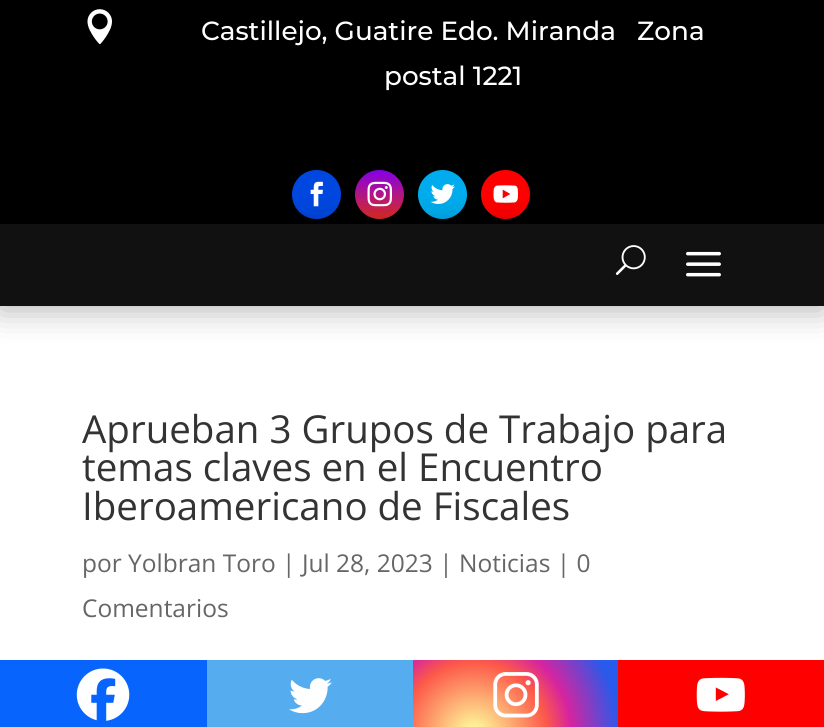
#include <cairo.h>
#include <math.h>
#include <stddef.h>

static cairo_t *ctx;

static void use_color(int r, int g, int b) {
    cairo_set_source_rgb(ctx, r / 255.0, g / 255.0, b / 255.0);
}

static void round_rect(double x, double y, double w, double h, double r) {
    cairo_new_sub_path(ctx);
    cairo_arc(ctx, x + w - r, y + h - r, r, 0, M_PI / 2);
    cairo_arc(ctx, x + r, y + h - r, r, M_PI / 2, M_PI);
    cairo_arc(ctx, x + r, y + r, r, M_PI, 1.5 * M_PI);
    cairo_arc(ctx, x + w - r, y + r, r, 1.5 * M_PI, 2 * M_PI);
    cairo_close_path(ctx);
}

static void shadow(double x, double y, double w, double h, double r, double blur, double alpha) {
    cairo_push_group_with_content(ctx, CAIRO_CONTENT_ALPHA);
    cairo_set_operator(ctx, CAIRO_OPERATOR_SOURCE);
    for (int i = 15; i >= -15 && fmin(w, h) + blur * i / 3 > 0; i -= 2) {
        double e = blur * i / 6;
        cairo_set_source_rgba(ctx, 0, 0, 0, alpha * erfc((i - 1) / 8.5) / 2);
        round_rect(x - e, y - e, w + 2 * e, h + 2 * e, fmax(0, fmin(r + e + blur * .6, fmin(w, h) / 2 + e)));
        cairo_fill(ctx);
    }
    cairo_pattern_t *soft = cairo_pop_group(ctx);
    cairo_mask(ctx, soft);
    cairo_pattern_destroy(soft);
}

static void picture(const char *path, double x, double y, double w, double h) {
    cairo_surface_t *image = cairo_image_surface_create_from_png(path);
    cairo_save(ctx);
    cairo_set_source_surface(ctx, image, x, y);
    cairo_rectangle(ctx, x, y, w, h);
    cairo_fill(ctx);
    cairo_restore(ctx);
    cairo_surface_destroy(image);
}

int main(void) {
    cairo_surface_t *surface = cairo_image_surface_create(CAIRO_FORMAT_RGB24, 824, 727);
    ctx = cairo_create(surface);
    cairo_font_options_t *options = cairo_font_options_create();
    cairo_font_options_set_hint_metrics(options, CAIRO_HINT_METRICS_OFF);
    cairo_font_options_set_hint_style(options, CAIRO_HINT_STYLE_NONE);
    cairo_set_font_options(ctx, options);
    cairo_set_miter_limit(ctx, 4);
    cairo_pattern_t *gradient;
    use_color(255, 255, 255);
    cairo_paint(ctx);
    use_color(0, 0, 0);
    cairo_rectangle(ctx, 0, 0, 824, 224);
    cairo_fill(ctx);
    picture("img1.png", 87, 9, 25, 36);
    cairo_select_font_face(ctx, "Montserrat Medium", CAIRO_FONT_SLANT_NORMAL, CAIRO_FONT_WEIGHT_NORMAL);
    cairo_set_font_size(ctx, 26.25);
    use_color(255, 255, 255);
    cairo_move_to(ctx, 201, 40);
    cairo_show_text(ctx, "Castillejo, Guatire Edo. Miranda   Zona");
    cairo_move_to(ctx, 384, 85);
    cairo_show_text(ctx, "postal 1221");
    use_color(0, 71, 224);
    cairo_new_path(ctx);
    cairo_arc(ctx, 316.5, 194.5, 24.5, 0, 2 * M_PI);
    cairo_fill(ctx);
    picture("img2.png", 310, 181, 13, 26);
    gradient = cairo_pattern_create_linear(380, 170, 380, 219);
    cairo_pattern_add_color_stop_rgba(gradient, 0, 0.514, 0, 0.914, 1);
    cairo_pattern_add_color_stop_rgba(gradient, 1, 0.878, 0.169, 0.125, 1);
    cairo_set_source(ctx, gradient);
    cairo_pattern_destroy(gradient);
    cairo_arc(ctx, 379.5, 194.5, 24.5, 0, 2 * M_PI);
    cairo_fill(ctx);
    picture("img3.png", 367, 181, 25, 26);
    use_color(0, 172, 237);
    cairo_arc(ctx, 442.5, 194.5, 24.5, 0, 2 * M_PI);
    cairo_fill(ctx);
    picture("img4.png", 430, 184, 25, 20);
    use_color(255, 0, 0);
    cairo_arc(ctx, 505.5, 194.5, 24.5, 0, 2 * M_PI);
    cairo_fill(ctx);
    picture("img5.png", 493, 185, 25, 18);
    use_color(0, 0, 0);
    shadow(0, 228, 824, 82, 0, 16, 0.3);
    use_color(17, 17, 17);
    cairo_rectangle(ctx, 0, 224, 824, 82);
    cairo_fill(ctx);
    picture("img6.png", 615, 245, 31, 30);
    picture("img7.png", 686, 251, 35, 26);
    cairo_select_font_face(ctx, "Open Sans", CAIRO_FONT_SLANT_NORMAL, CAIRO_FONT_WEIGHT_NORMAL);
    cairo_set_font_size(ctx, 38.5);
    use_color(51, 51, 51);
    cairo_move_to(ctx, 82, 443);
    cairo_show_text(ctx, "Aprueban 3 Grupos de Trabajo para");
    cairo_move_to(ctx, 82, 481);
    cairo_show_text(ctx, "temas claves en el Encuentro");
    cairo_move_to(ctx, 82, 520);
    cairo_show_text(ctx, "Iberoamericano de Fiscales");
    cairo_set_font_size(ctx, 24.5);
    use_color(102, 102, 102);
    cairo_move_to(ctx, 82, 572);
    cairo_show_text(ctx, "por Yolbran Toro | Jul 28, 2023 | Noticias | 0");
    cairo_move_to(ctx, 82, 617);
    cairo_show_text(ctx, "Comentarios");
    use_color(7, 101, 254);
    cairo_rectangle(ctx, 0, 660, 207, 67);
    cairo_fill(ctx);
    picture("img8.png", 76, 668, 54, 53);
    use_color(85, 172, 238);
    cairo_rectangle(ctx, 207, 660, 206, 67);
    cairo_fill(ctx);
    picture("img9.png", 289, 678, 43, 36);
    gradient = cairo_pattern_create_radial(474, 735, 0, 474, 735, 162);
    cairo_pattern_add_color_stop_rgba(gradient, 0, 0.992, 0.957, 0.592, 1);
    cairo_pattern_add_color_stop_rgba(gradient, 0.05, 0.992, 0.957, 0.592, 1);
    cairo_pattern_add_color_stop_rgba(gradient, 0.45, 0.992, 0.349, 0.286, 1);
    cairo_pattern_add_color_stop_rgba(gradient, 0.6, 0.839, 0.141, 0.624, 1);
    cairo_pattern_add_color_stop_rgba(gradient, 0.9, 0.157, 0.353, 0.922, 1);
    cairo_set_source(ctx, gradient);
    cairo_pattern_destroy(gradient);
    cairo_rectangle(ctx, 413, 660, 205, 67);
    cairo_fill(ctx);
    picture("img10.png", 493, 672, 46, 46);
    use_color(255, 0, 0);
    cairo_rectangle(ctx, 618, 660, 206, 67);
    cairo_fill(ctx);
    picture("img11.png", 696, 677, 49, 35);
    cairo_surface_write_to_png(surface, "result.png");
    cairo_font_options_destroy(options);
    cairo_destroy(ctx);
    cairo_surface_destroy(surface);
    return 0;
}
